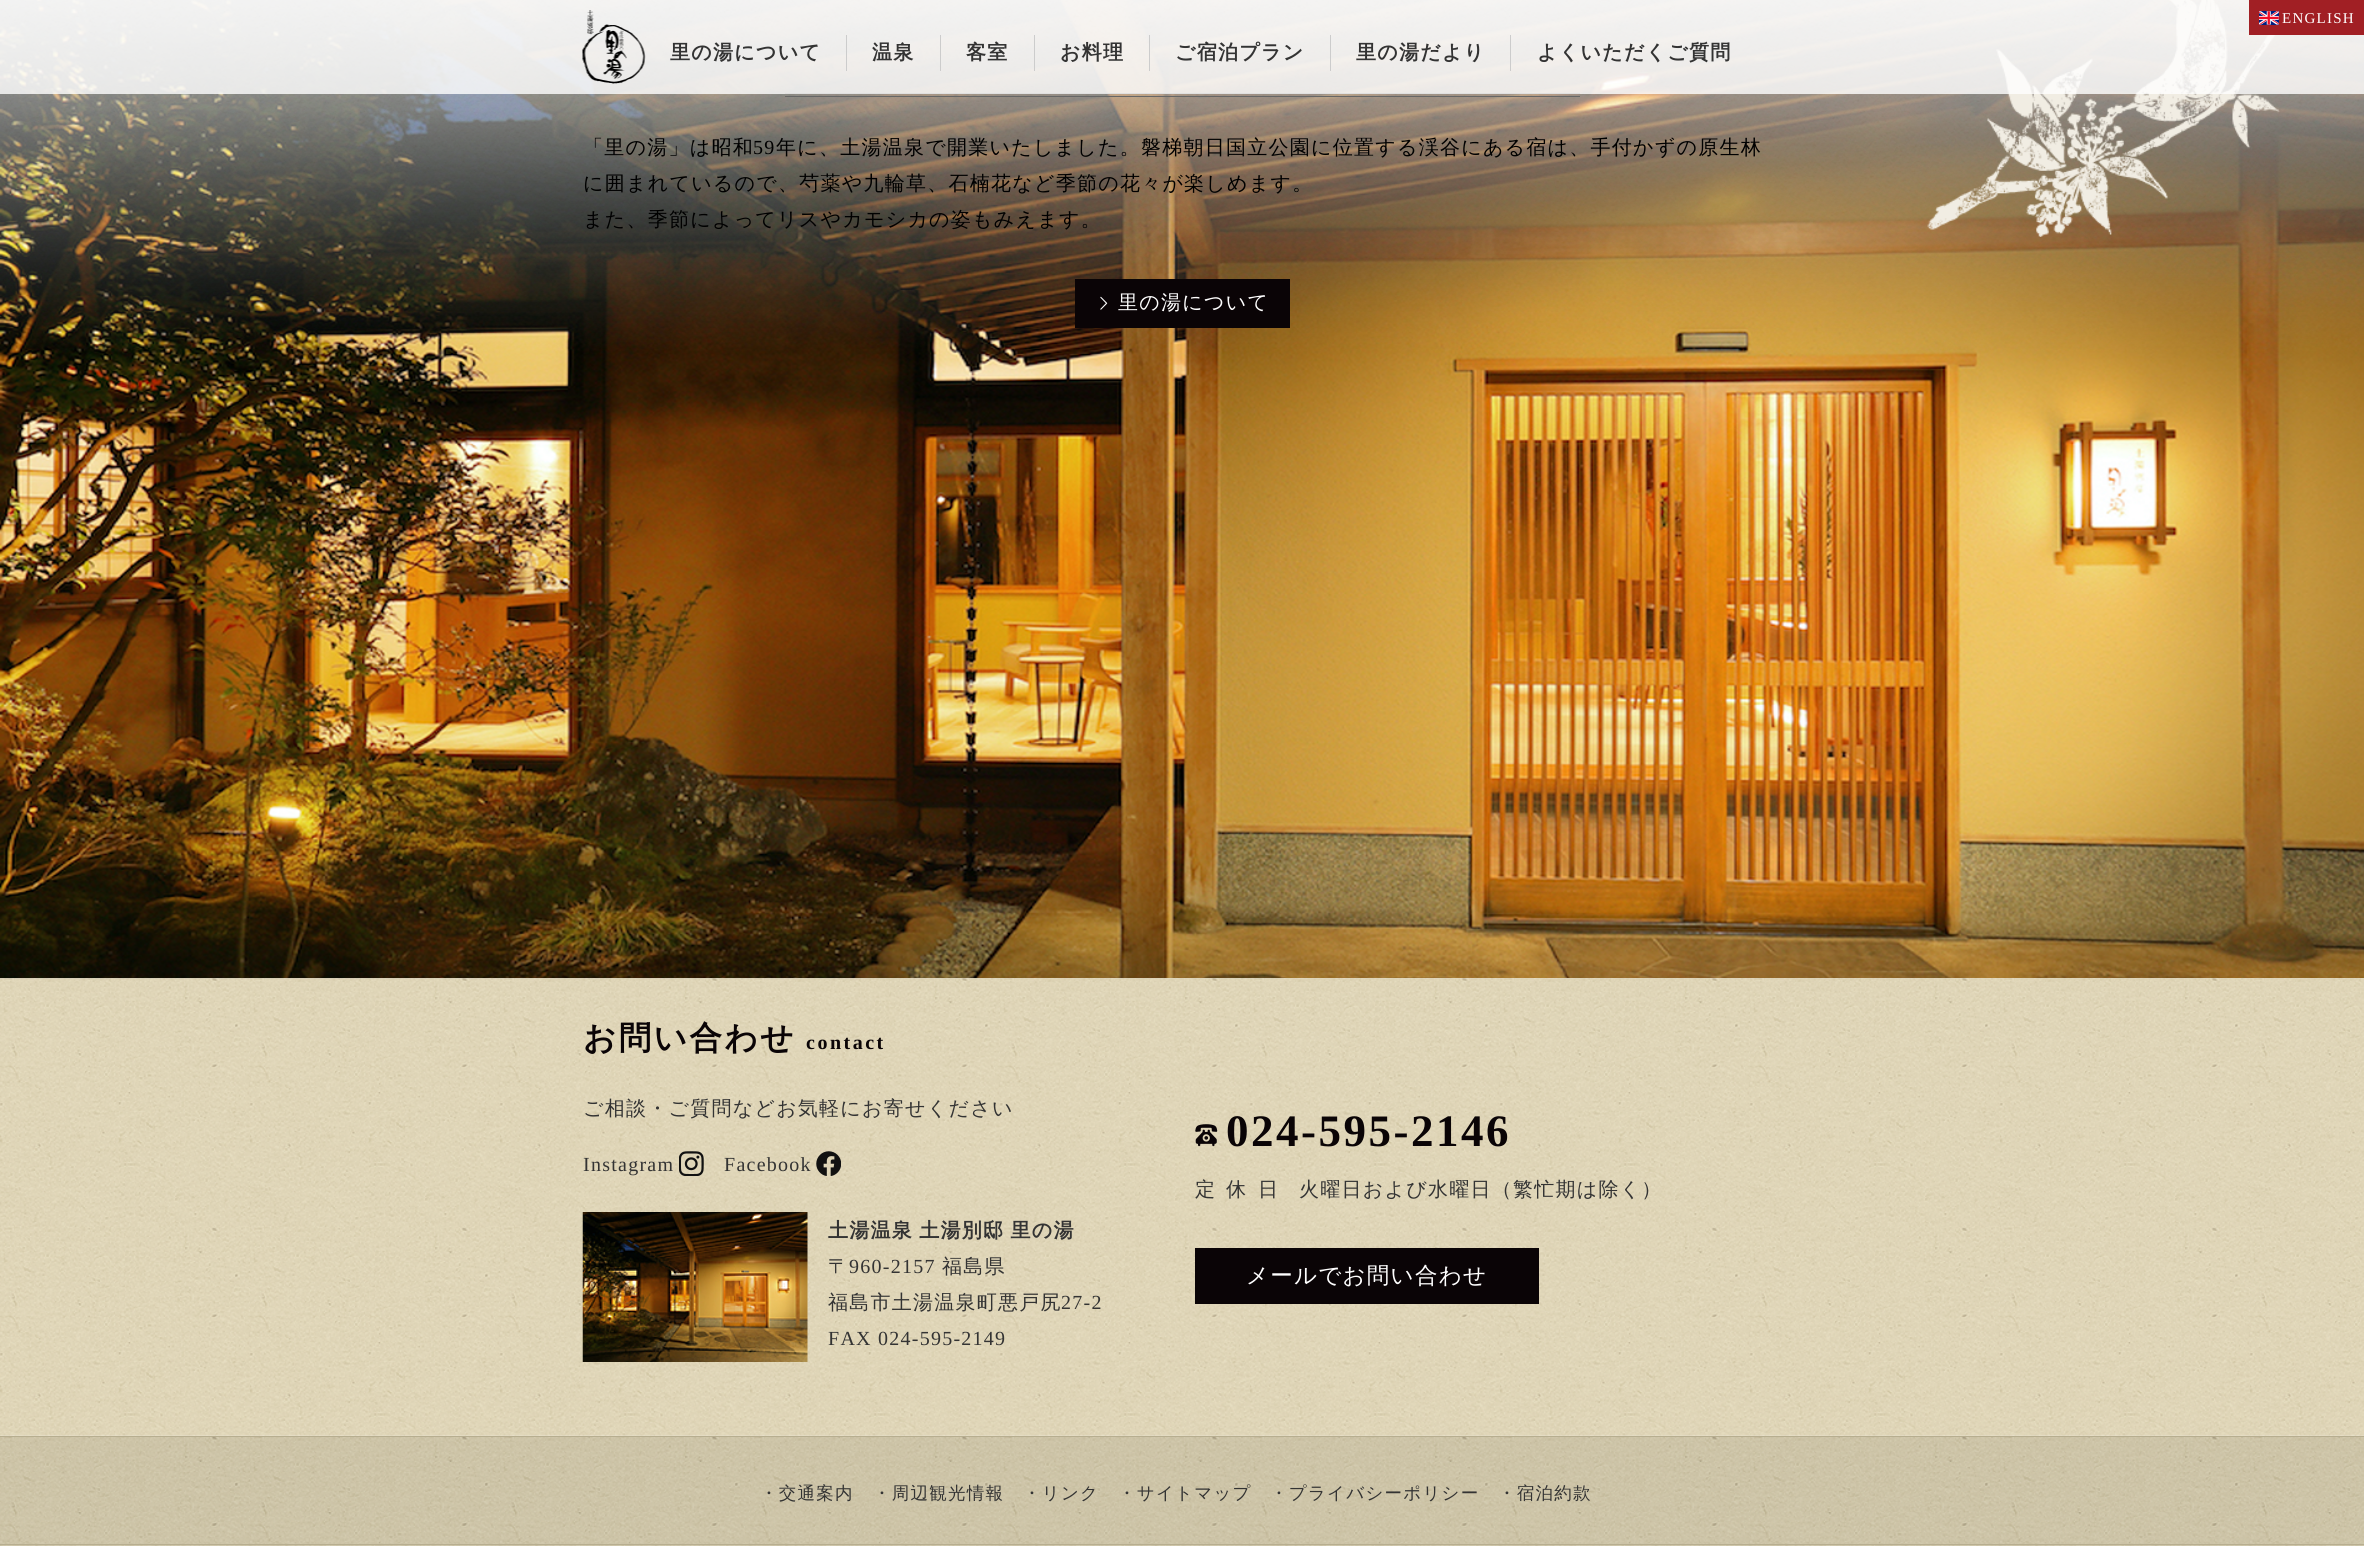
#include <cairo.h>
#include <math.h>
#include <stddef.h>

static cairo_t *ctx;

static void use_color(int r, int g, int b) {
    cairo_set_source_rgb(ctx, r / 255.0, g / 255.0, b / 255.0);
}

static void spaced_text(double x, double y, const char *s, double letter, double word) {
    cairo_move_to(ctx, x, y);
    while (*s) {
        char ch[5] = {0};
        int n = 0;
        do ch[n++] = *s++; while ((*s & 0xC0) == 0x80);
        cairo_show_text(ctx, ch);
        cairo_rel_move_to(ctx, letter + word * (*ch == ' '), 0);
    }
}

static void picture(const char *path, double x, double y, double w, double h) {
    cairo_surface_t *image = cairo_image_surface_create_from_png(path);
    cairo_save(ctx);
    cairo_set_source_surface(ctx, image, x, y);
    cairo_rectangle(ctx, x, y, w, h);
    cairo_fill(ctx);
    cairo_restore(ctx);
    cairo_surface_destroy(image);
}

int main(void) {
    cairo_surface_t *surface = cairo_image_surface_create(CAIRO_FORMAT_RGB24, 2364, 1546);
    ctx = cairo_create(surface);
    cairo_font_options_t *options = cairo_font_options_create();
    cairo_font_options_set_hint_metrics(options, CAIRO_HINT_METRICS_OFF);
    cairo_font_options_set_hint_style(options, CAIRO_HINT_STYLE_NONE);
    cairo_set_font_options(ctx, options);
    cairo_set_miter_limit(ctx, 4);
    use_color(255, 255, 255);
    cairo_paint(ctx);
    picture("img1.png", 0, 0, 2364, 1436);
    picture("img4.png", 0, 0, 2364, 979);
    use_color(102, 102, 102);
    cairo_rectangle(ctx, 785, 93, 795, 1);
    cairo_fill(ctx);
    cairo_set_source_rgba(ctx, 1, 1, 1, 0.8);
    cairo_rectangle(ctx, 0, 0, 2364, 94);
    cairo_fill(ctx);
    use_color(161, 31, 36);
    cairo_rectangle(ctx, 2249, 0, 115, 35);
    cairo_fill(ctx);
    picture("img2.png", 2259, 11, 20, 14);
    cairo_select_font_face(ctx, "Liberation Serif", CAIRO_FONT_SLANT_NORMAL, CAIRO_FONT_WEIGHT_NORMAL);
    cairo_set_font_size(ctx, 15);
    use_color(255, 255, 255);
    spaced_text(2282, 23, "ENGLISH", 1.25, 0);
    picture("img3.png", 582, 10, 64, 74);
    use_color(204, 204, 204);
    cairo_rectangle(ctx, 846, 35, 1, 36);
    cairo_fill(ctx);
    cairo_select_font_face(ctx, "WenQuanYi Zen Hei", CAIRO_FONT_SLANT_NORMAL, CAIRO_FONT_WEIGHT_BOLD);
    cairo_set_font_size(ctx, 20);
    use_color(51, 51, 51);
    spaced_text(670, 59, "里の湯について", 1.25, 0);
    use_color(204, 204, 204);
    cairo_rectangle(ctx, 940, 35, 1, 36);
    cairo_fill(ctx);
    use_color(51, 51, 51);
    spaced_text(872, 59, "温泉", 1.25, 0);
    use_color(204, 204, 204);
    cairo_rectangle(ctx, 1034, 35, 1, 36);
    cairo_fill(ctx);
    use_color(51, 51, 51);
    spaced_text(966, 59, "客室", 1.25, 0);
    use_color(204, 204, 204);
    cairo_rectangle(ctx, 1149, 35, 1, 36);
    cairo_fill(ctx);
    use_color(51, 51, 51);
    spaced_text(1060, 59, "お料理", 1.25, 0);
    use_color(204, 204, 204);
    cairo_rectangle(ctx, 1330, 35, 1, 36);
    cairo_fill(ctx);
    use_color(51, 51, 51);
    spaced_text(1175, 59, "ご宿泊プラン", 1.25, 0);
    use_color(204, 204, 204);
    cairo_rectangle(ctx, 1510, 35, 1, 36);
    cairo_fill(ctx);
    use_color(51, 51, 51);
    spaced_text(1356, 59, "里の湯だより", 1.25, 0);
    spaced_text(1537, 59, "よくいただくご質問", 1.25, 0);
    use_color(102, 102, 102);
    cairo_rectangle(ctx, 785, 96, 795, 1);
    cairo_fill(ctx);
    cairo_select_font_face(ctx, "WenQuanYi Zen Hei Medium", CAIRO_FONT_SLANT_NORMAL, CAIRO_FONT_WEIGHT_NORMAL);
    use_color(0, 0, 0);
    spaced_text(583, 154, "「里の湯」は昭和", 1.25, 0);
    cairo_select_font_face(ctx, "Liberation Serif", CAIRO_FONT_SLANT_NORMAL, CAIRO_FONT_WEIGHT_NORMAL);
    spaced_text(753, 154, "59", 1.25, 0);
    cairo_select_font_face(ctx, "WenQuanYi Zen Hei Medium", CAIRO_FONT_SLANT_NORMAL, CAIRO_FONT_WEIGHT_NORMAL);
    spaced_text(776, 154, "年に、土湯温泉で開業いたしました。磐梯朝日国立公園に位置する渓谷にある宿は、手付かずの原生林", 1.25, 0);
    spaced_text(583, 190, "に囲まれているので、芍薬や九輪草、石楠花など季節の花々が楽しめます。", 1.25, 0);
    spaced_text(583, 226, "また、季節によってリスやカモシカの姿もみえます。", 1.25, 0);
    use_color(10, 4, 6);
    cairo_rectangle(ctx, 1075, 279, 215, 49);
    cairo_fill(ctx);
    picture("img5.png", 1100, 296, 8, 14);
    use_color(255, 255, 255);
    spaced_text(1118, 309, "里の湯について", 1.25, 0);
    picture("img11.png", 0, 1435, 2364, 111);
    picture("img6.png", 0, 978, 2364, 458);
    cairo_select_font_face(ctx, "WenQuanYi Zen Hei", CAIRO_FONT_SLANT_NORMAL, CAIRO_FONT_WEIGHT_BOLD);
    cairo_set_font_size(ctx, 32.5);
    use_color(10, 4, 6);
    spaced_text(583, 1049, "お問い合わせ", 2.5, 0);
    cairo_select_font_face(ctx, "Liberation Serif", CAIRO_FONT_SLANT_NORMAL, CAIRO_FONT_WEIGHT_BOLD);
    cairo_set_font_size(ctx, 20);
    spaced_text(806, 1049, "contact", 2.5, 0);
    cairo_select_font_face(ctx, "WenQuanYi Zen Hei Medium", CAIRO_FONT_SLANT_NORMAL, CAIRO_FONT_WEIGHT_NORMAL);
    use_color(51, 51, 51);
    spaced_text(583, 1115, "ご相談・ご質問などお気軽にお寄せください", 1.25, 0);
    cairo_select_font_face(ctx, "Liberation Serif", CAIRO_FONT_SLANT_NORMAL, CAIRO_FONT_WEIGHT_NORMAL);
    spaced_text(583, 1171, "Instagram", 1.25, 0);
    picture("img7.png", 679, 1151, 25, 25);
    spaced_text(724, 1171, "Facebook", 1.25, 0);
    picture("img8.png", 816, 1151, 25, 25);
    picture("img9.png", 582, 1212, 226, 150);
    cairo_select_font_face(ctx, "WenQuanYi Zen Hei", CAIRO_FONT_SLANT_NORMAL, CAIRO_FONT_WEIGHT_BOLD);
    spaced_text(828, 1237, "土湯温泉 土湯別邸 里の湯", 1.25, -1);
    cairo_select_font_face(ctx, "WenQuanYi Zen Hei Medium", CAIRO_FONT_SLANT_NORMAL, CAIRO_FONT_WEIGHT_NORMAL);
    spaced_text(828, 1273, "〒", 1.25, 0);
    cairo_select_font_face(ctx, "Liberation Serif", CAIRO_FONT_SLANT_NORMAL, CAIRO_FONT_WEIGHT_NORMAL);
    spaced_text(849, 1273, "960-2157", 1.25, 0);
    cairo_select_font_face(ctx, "WenQuanYi Zen Hei Medium", CAIRO_FONT_SLANT_NORMAL, CAIRO_FONT_WEIGHT_NORMAL);
    spaced_text(942, 1273, "福島県", 1.25, 0);
    spaced_text(828, 1309, "福島市土湯温泉町悪戸尻", 1.25, 0);
    cairo_select_font_face(ctx, "Liberation Serif", CAIRO_FONT_SLANT_NORMAL, CAIRO_FONT_WEIGHT_NORMAL);
    spaced_text(1061, 1309, "27-2", 1.25, 0);
    spaced_text(828, 1345, "FAX 024-595-2149", 1.25, 0);
    picture("img10.png", 1195, 1124, 23, 23);
    cairo_select_font_face(ctx, "Liberation Serif", CAIRO_FONT_SLANT_NORMAL, CAIRO_FONT_WEIGHT_BOLD);
    cairo_set_font_size(ctx, 45);
    use_color(10, 4, 6);
    spaced_text(1226, 1146, "024-595-2146", 2.5, 0);
    cairo_select_font_face(ctx, "WenQuanYi Zen Hei Medium", CAIRO_FONT_SLANT_NORMAL, CAIRO_FONT_WEIGHT_NORMAL);
    cairo_set_font_size(ctx, 20);
    use_color(51, 51, 51);
    spaced_text(1195, 1196, "定", 1.25, 0);
    spaced_text(1226, 1196, "休", 1.25, 0);
    spaced_text(1258, 1196, "日", 1.25, 0);
    spaced_text(1299, 1196, "火曜日および水曜日（繁忙期は除く）", 1.25, 0);
    use_color(10, 4, 6);
    cairo_rectangle(ctx, 1195, 1248, 344, 56);
    cairo_fill(ctx);
    cairo_set_font_size(ctx, 22.5);
    use_color(255, 255, 255);
    spaced_text(1246, 1283, "メールでお問い合わせ", 1.25, 0);
    use_color(183, 174, 144);
    cairo_rectangle(ctx, 0, 1436, 2364, 1);
    cairo_fill(ctx);
    cairo_set_font_size(ctx, 17.5);
    use_color(51, 51, 51);
    spaced_text(760, 1499, "・交通案内", 1.25, 0);
    spaced_text(873, 1499, "・周辺観光情報", 1.25, 0);
    spaced_text(1023, 1499, "・リンク", 1.25, 0);
    spaced_text(1118, 1499, "・サイトマップ", 1.25, 0);
    spaced_text(1270, 1499, "・プライバシーポリシー", 1.25, 0);
    spaced_text(1498, 1499, "・宿泊約款", 1.25, 0);
    use_color(183, 174, 144);
    cairo_rectangle(ctx, 0, 1544, 2364, 1);
    cairo_fill(ctx);
    cairo_surface_write_to_png(surface, "result.png");
    cairo_font_options_destroy(options);
    cairo_destroy(ctx);
    cairo_surface_destroy(surface);
    return 0;
}
